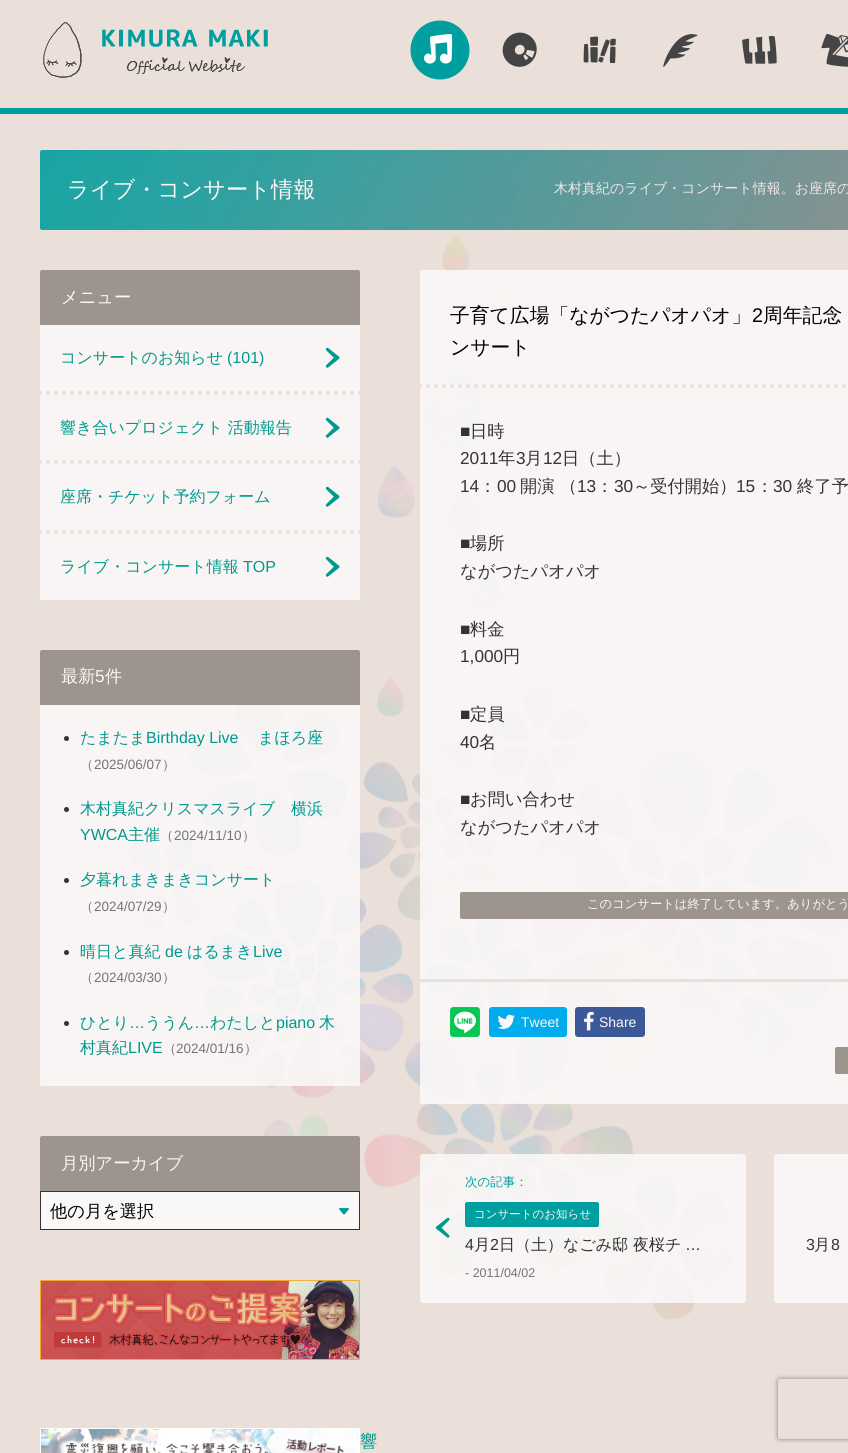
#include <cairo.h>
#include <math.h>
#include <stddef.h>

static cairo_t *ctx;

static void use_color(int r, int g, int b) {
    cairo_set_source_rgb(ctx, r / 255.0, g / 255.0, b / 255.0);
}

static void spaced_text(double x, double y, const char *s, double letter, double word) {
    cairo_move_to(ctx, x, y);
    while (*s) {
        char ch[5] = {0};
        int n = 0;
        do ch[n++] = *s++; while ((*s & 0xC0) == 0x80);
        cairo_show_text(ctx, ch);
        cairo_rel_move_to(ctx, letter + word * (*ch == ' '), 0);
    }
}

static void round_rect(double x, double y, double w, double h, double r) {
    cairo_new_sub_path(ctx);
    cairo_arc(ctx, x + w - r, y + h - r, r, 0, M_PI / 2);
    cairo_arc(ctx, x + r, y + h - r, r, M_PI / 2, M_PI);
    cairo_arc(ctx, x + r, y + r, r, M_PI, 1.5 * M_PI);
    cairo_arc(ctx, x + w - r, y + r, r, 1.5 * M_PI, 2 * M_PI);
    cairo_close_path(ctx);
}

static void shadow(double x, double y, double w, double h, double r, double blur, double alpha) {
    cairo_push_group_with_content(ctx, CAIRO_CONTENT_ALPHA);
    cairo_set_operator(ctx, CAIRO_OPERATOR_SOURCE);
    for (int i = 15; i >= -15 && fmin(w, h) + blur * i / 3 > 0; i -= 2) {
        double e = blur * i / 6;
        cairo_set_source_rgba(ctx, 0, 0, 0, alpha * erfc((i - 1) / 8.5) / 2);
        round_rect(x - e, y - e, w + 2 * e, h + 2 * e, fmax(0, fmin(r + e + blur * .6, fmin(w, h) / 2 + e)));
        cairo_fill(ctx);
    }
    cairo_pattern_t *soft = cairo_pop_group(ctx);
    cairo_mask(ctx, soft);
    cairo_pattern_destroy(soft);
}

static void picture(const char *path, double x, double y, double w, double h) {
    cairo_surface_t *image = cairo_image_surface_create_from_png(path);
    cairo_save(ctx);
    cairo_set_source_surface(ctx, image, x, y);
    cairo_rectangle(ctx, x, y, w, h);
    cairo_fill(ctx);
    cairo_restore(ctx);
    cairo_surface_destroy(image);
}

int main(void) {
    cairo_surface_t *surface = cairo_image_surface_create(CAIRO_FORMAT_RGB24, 848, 1453);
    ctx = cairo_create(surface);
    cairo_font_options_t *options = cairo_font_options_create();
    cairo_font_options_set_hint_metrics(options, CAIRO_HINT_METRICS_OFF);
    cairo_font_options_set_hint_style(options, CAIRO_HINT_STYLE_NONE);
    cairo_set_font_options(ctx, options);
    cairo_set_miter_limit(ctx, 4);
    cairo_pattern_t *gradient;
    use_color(234, 223, 217);
    cairo_paint(ctx);
    picture("img1.png", 116, 152, 732, 1168);
    use_color(0, 159, 159);
    cairo_rectangle(ctx, 0, 108, 848, 6);
    cairo_fill(ctx);
    picture("img2.png", 43, 22, 225, 56);
    picture("img3.png", 410, 20, 60, 60);
    picture("img4.png", 502, 32, 35, 35);
    picture("img5.png", 583, 36, 33, 28);
    picture("img6.png", 663, 34, 35, 33);
    picture("img7.png", 742, 36, 35, 28);
    picture("img8.png", 821, 33, 27, 34);
    gradient = cairo_pattern_create_linear(155, -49, 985, 429);
    cairo_pattern_add_color_stop_rgba(gradient, 0, 0, 0.624, 0.624, 0.9);
    cairo_pattern_add_color_stop_rgba(gradient, 1, 0.663, 0.549, 0.549, 1);
    cairo_set_source(ctx, gradient);
    cairo_pattern_destroy(gradient);
    round_rect(40, 150, 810, 80, 2);
    cairo_fill(ctx);
    cairo_select_font_face(ctx, "WenQuanYi Zen Hei Medium", CAIRO_FONT_SLANT_NORMAL, CAIRO_FONT_WEIGHT_NORMAL);
    cairo_set_font_size(ctx, 22.25);
    use_color(250, 247, 247);
    cairo_move_to(ctx, 67, 197);
    cairo_show_text(ctx, "ライブ・コンサート情報");
    cairo_set_font_size(ctx, 14);
    use_color(240, 231, 231);
    cairo_move_to(ctx, 554, 193);
    cairo_show_text(ctx, "木村真紀のライブ・コンサート情報。お座席の");
    use_color(158, 148, 142);
    cairo_new_path(ctx);
    cairo_move_to(ctx, 42, 270);
    cairo_line_to(ctx, 358, 270);
    cairo_curve_to(ctx, 359, 270, 360, 271, 360, 272);
    cairo_line_to(ctx, 360, 325);
    cairo_line_to(ctx, 40, 325);
    cairo_line_to(ctx, 40, 272);
    cairo_curve_to(ctx, 40, 271, 41, 270, 42, 270);
    cairo_close_path(ctx);
    cairo_fill(ctx);
    cairo_set_font_size(ctx, 17.25);
    use_color(250, 247, 247);
    cairo_move_to(ctx, 61, 303);
    cairo_show_text(ctx, "メニュー");
    use_color(248, 245, 244);
    cairo_rectangle(ctx, 40, 325, 320, 275);
    cairo_fill(ctx);
    picture("img9.png", 325, 347, 15, 21);
    cairo_set_font_size(ctx, 16);
    use_color(0, 153, 142);
    cairo_move_to(ctx, 60, 363);
    cairo_show_text(ctx, "コンサートのお知らせ");
    cairo_select_font_face(ctx, "Liberation Sans", CAIRO_FONT_SLANT_NORMAL, CAIRO_FONT_WEIGHT_NORMAL);
    cairo_move_to(ctx, 227, 363);
    cairo_show_text(ctx, "(101)");
    cairo_new_path(ctx);
    cairo_move_to(ctx, 40, 393);
    cairo_line_to(ctx, 360, 393);
    use_color(234, 223, 217);
    cairo_set_line_width(ctx, 4);
    cairo_set_line_cap(ctx, CAIRO_LINE_CAP_ROUND);
    cairo_set_dash(ctx, (double[]){0, 8}, 2, 0);
    cairo_stroke(ctx);
    picture("img9.png", 325, 417, 15, 21);
    cairo_select_font_face(ctx, "WenQuanYi Zen Hei Medium", CAIRO_FONT_SLANT_NORMAL, CAIRO_FONT_WEIGHT_NORMAL);
    use_color(0, 153, 142);
    cairo_move_to(ctx, 60, 433);
    cairo_show_text(ctx, "響き合いプロジェクト 活動報告");
    cairo_new_path(ctx);
    cairo_move_to(ctx, 40, 462);
    cairo_line_to(ctx, 360, 462);
    use_color(234, 223, 217);
    cairo_stroke(ctx);
    picture("img9.png", 325, 486, 15, 21);
    use_color(0, 153, 142);
    cairo_move_to(ctx, 60, 502);
    cairo_show_text(ctx, "座席・チケット予約フォーム");
    cairo_new_path(ctx);
    cairo_move_to(ctx, 40, 532);
    cairo_line_to(ctx, 360, 532);
    use_color(234, 223, 217);
    cairo_stroke(ctx);
    picture("img9.png", 325, 556, 15, 21);
    use_color(0, 153, 142);
    cairo_move_to(ctx, 60, 572);
    cairo_show_text(ctx, "ライブ・コンサート情報");
    cairo_select_font_face(ctx, "Liberation Sans", CAIRO_FONT_SLANT_NORMAL, CAIRO_FONT_WEIGHT_NORMAL);
    cairo_move_to(ctx, 243, 572);
    cairo_show_text(ctx, "TOP");
    cairo_set_source_rgba(ctx, 0.98, 0.969, 0.969, 0.9);
    round_rect(40, 650, 320, 436, 2);
    cairo_fill(ctx);
    use_color(158, 148, 142);
    cairo_new_path(ctx);
    cairo_move_to(ctx, 42, 650);
    cairo_line_to(ctx, 358, 650);
    cairo_curve_to(ctx, 359, 650, 360, 651, 360, 652);
    cairo_line_to(ctx, 360, 705);
    cairo_line_to(ctx, 40, 705);
    cairo_line_to(ctx, 40, 652);
    cairo_curve_to(ctx, 40, 651, 41, 650, 42, 650);
    cairo_close_path(ctx);
    cairo_fill(ctx);
    cairo_select_font_face(ctx, "WenQuanYi Zen Hei Medium", CAIRO_FONT_SLANT_NORMAL, CAIRO_FONT_WEIGHT_NORMAL);
    cairo_set_font_size(ctx, 17.25);
    use_color(250, 247, 247);
    cairo_move_to(ctx, 61, 682);
    cairo_show_text(ctx, "最新");
    cairo_select_font_face(ctx, "Liberation Sans", CAIRO_FONT_SLANT_NORMAL, CAIRO_FONT_WEIGHT_NORMAL);
    cairo_move_to(ctx, 95, 682);
    cairo_show_text(ctx, "5");
    cairo_select_font_face(ctx, "WenQuanYi Zen Hei Medium", CAIRO_FONT_SLANT_NORMAL, CAIRO_FONT_WEIGHT_NORMAL);
    cairo_move_to(ctx, 105, 682);
    cairo_show_text(ctx, "件");
    use_color(51, 51, 51);
    cairo_new_path(ctx);
    cairo_arc(ctx, 66.5, 738.5, 2.5, 0, 2 * M_PI);
    cairo_fill(ctx);
    cairo_set_font_size(ctx, 16);
    use_color(0, 153, 142);
    cairo_move_to(ctx, 80, 743);
    cairo_show_text(ctx, "たまたま");
    cairo_select_font_face(ctx, "Liberation Sans", CAIRO_FONT_SLANT_NORMAL, CAIRO_FONT_WEIGHT_NORMAL);
    cairo_move_to(ctx, 146, 743);
    cairo_show_text(ctx, "Birthday Live");
    cairo_select_font_face(ctx, "WenQuanYi Zen Hei Medium", CAIRO_FONT_SLANT_NORMAL, CAIRO_FONT_WEIGHT_NORMAL);
    cairo_move_to(ctx, 258, 743);
    cairo_show_text(ctx, "まほろ座");
    cairo_set_font_size(ctx, 13.5);
    use_color(119, 115, 115);
    cairo_move_to(ctx, 80, 769);
    cairo_show_text(ctx, "（");
    cairo_select_font_face(ctx, "Liberation Sans", CAIRO_FONT_SLANT_NORMAL, CAIRO_FONT_WEIGHT_NORMAL);
    cairo_move_to(ctx, 94, 769);
    cairo_show_text(ctx, "2025/06/07");
    cairo_select_font_face(ctx, "WenQuanYi Zen Hei Medium", CAIRO_FONT_SLANT_NORMAL, CAIRO_FONT_WEIGHT_NORMAL);
    cairo_move_to(ctx, 162, 769);
    cairo_show_text(ctx, "）");
    use_color(51, 51, 51);
    cairo_new_path(ctx);
    cairo_arc(ctx, 66.5, 809.5, 2.5, 0, 2 * M_PI);
    cairo_fill(ctx);
    cairo_set_font_size(ctx, 16);
    use_color(0, 153, 142);
    cairo_move_to(ctx, 80, 814);
    cairo_show_text(ctx, "木村真紀クリスマスライブ　横浜");
    cairo_select_font_face(ctx, "Liberation Sans", CAIRO_FONT_SLANT_NORMAL, CAIRO_FONT_WEIGHT_NORMAL);
    cairo_move_to(ctx, 80, 840);
    cairo_show_text(ctx, "YWCA");
    cairo_select_font_face(ctx, "WenQuanYi Zen Hei Medium", CAIRO_FONT_SLANT_NORMAL, CAIRO_FONT_WEIGHT_NORMAL);
    cairo_move_to(ctx, 128, 840);
    cairo_show_text(ctx, "主催");
    cairo_set_font_size(ctx, 13.5);
    use_color(119, 115, 115);
    cairo_move_to(ctx, 160, 840);
    cairo_show_text(ctx, "（");
    cairo_select_font_face(ctx, "Liberation Sans", CAIRO_FONT_SLANT_NORMAL, CAIRO_FONT_WEIGHT_NORMAL);
    cairo_move_to(ctx, 174, 840);
    cairo_show_text(ctx, "2024/11/10");
    cairo_select_font_face(ctx, "WenQuanYi Zen Hei Medium", CAIRO_FONT_SLANT_NORMAL, CAIRO_FONT_WEIGHT_NORMAL);
    cairo_move_to(ctx, 242, 840);
    cairo_show_text(ctx, "）");
    use_color(51, 51, 51);
    cairo_new_path(ctx);
    cairo_arc(ctx, 66.5, 880.5, 2.5, 0, 2 * M_PI);
    cairo_fill(ctx);
    cairo_set_font_size(ctx, 16);
    use_color(0, 153, 142);
    cairo_move_to(ctx, 80, 885);
    cairo_show_text(ctx, "夕暮れまきまきコンサート");
    cairo_set_font_size(ctx, 13.5);
    use_color(119, 115, 115);
    cairo_move_to(ctx, 80, 911);
    cairo_show_text(ctx, "（");
    cairo_select_font_face(ctx, "Liberation Sans", CAIRO_FONT_SLANT_NORMAL, CAIRO_FONT_WEIGHT_NORMAL);
    cairo_move_to(ctx, 94, 911);
    cairo_show_text(ctx, "2024/07/29");
    cairo_select_font_face(ctx, "WenQuanYi Zen Hei Medium", CAIRO_FONT_SLANT_NORMAL, CAIRO_FONT_WEIGHT_NORMAL);
    cairo_move_to(ctx, 162, 911);
    cairo_show_text(ctx, "）");
    use_color(51, 51, 51);
    cairo_new_path(ctx);
    cairo_arc(ctx, 66.5, 952.5, 2.5, 0, 2 * M_PI);
    cairo_fill(ctx);
    cairo_set_font_size(ctx, 16);
    use_color(0, 153, 142);
    cairo_move_to(ctx, 80, 957);
    cairo_show_text(ctx, "晴日と真紀");
    cairo_select_font_face(ctx, "Liberation Sans", CAIRO_FONT_SLANT_NORMAL, CAIRO_FONT_WEIGHT_NORMAL);
    cairo_move_to(ctx, 165, 957);
    cairo_show_text(ctx, "de");
    cairo_select_font_face(ctx, "WenQuanYi Zen Hei Medium", CAIRO_FONT_SLANT_NORMAL, CAIRO_FONT_WEIGHT_NORMAL);
    cairo_move_to(ctx, 187, 957);
    cairo_show_text(ctx, "はるまき");
    cairo_select_font_face(ctx, "Liberation Sans", CAIRO_FONT_SLANT_NORMAL, CAIRO_FONT_WEIGHT_NORMAL);
    cairo_move_to(ctx, 253, 957);
    cairo_show_text(ctx, "Live");
    cairo_select_font_face(ctx, "WenQuanYi Zen Hei Medium", CAIRO_FONT_SLANT_NORMAL, CAIRO_FONT_WEIGHT_NORMAL);
    cairo_set_font_size(ctx, 13.5);
    use_color(119, 115, 115);
    cairo_move_to(ctx, 80, 982);
    cairo_show_text(ctx, "（");
    cairo_select_font_face(ctx, "Liberation Sans", CAIRO_FONT_SLANT_NORMAL, CAIRO_FONT_WEIGHT_NORMAL);
    cairo_move_to(ctx, 94, 982);
    cairo_show_text(ctx, "2024/03/30");
    cairo_select_font_face(ctx, "WenQuanYi Zen Hei Medium", CAIRO_FONT_SLANT_NORMAL, CAIRO_FONT_WEIGHT_NORMAL);
    cairo_move_to(ctx, 162, 982);
    cairo_show_text(ctx, "）");
    use_color(51, 51, 51);
    cairo_new_path(ctx);
    cairo_arc(ctx, 66.5, 1023.5, 2.5, 0, 2 * M_PI);
    cairo_fill(ctx);
    cairo_set_font_size(ctx, 16);
    use_color(0, 153, 142);
    cairo_move_to(ctx, 80, 1028);
    cairo_show_text(ctx, "ひとり");
    cairo_move_to(ctx, 145, 1028);
    cairo_show_text(ctx, "ううん");
    cairo_move_to(ctx, 210, 1028);
    cairo_show_text(ctx, "わたしと");
    cairo_select_font_face(ctx, "Liberation Sans", CAIRO_FONT_SLANT_NORMAL, CAIRO_FONT_WEIGHT_NORMAL);
    cairo_move_to(ctx, 276, 1028);
    cairo_show_text(ctx, "piano");
    cairo_select_font_face(ctx, "WenQuanYi Zen Hei Medium", CAIRO_FONT_SLANT_NORMAL, CAIRO_FONT_WEIGHT_NORMAL);
    cairo_move_to(ctx, 319, 1028);
    cairo_show_text(ctx, "木");
    cairo_select_font_face(ctx, "Liberation Sans", CAIRO_FONT_SLANT_NORMAL, CAIRO_FONT_WEIGHT_NORMAL);
    cairo_move_to(ctx, 129, 1028);
    cairo_show_text(ctx, "…");
    cairo_move_to(ctx, 194, 1028);
    cairo_show_text(ctx, "…");
    cairo_select_font_face(ctx, "WenQuanYi Zen Hei Medium", CAIRO_FONT_SLANT_NORMAL, CAIRO_FONT_WEIGHT_NORMAL);
    cairo_move_to(ctx, 80, 1053);
    cairo_show_text(ctx, "村真紀");
    cairo_select_font_face(ctx, "Liberation Sans", CAIRO_FONT_SLANT_NORMAL, CAIRO_FONT_WEIGHT_NORMAL);
    cairo_move_to(ctx, 128, 1053);
    cairo_show_text(ctx, "LIVE");
    cairo_select_font_face(ctx, "WenQuanYi Zen Hei Medium", CAIRO_FONT_SLANT_NORMAL, CAIRO_FONT_WEIGHT_NORMAL);
    cairo_set_font_size(ctx, 13.5);
    use_color(119, 115, 115);
    cairo_move_to(ctx, 163, 1053);
    cairo_show_text(ctx, "（");
    cairo_select_font_face(ctx, "Liberation Sans", CAIRO_FONT_SLANT_NORMAL, CAIRO_FONT_WEIGHT_NORMAL);
    cairo_move_to(ctx, 176, 1053);
    cairo_show_text(ctx, "2024/01/16");
    cairo_select_font_face(ctx, "WenQuanYi Zen Hei Medium", CAIRO_FONT_SLANT_NORMAL, CAIRO_FONT_WEIGHT_NORMAL);
    cairo_move_to(ctx, 244, 1053);
    cairo_show_text(ctx, "）");
    use_color(158, 148, 142);
    cairo_new_path(ctx);
    cairo_move_to(ctx, 42, 1136);
    cairo_line_to(ctx, 358, 1136);
    cairo_curve_to(ctx, 359, 1136, 360, 1137, 360, 1138);
    cairo_line_to(ctx, 360, 1191);
    cairo_line_to(ctx, 40, 1191);
    cairo_line_to(ctx, 40, 1138);
    cairo_curve_to(ctx, 40, 1137, 41, 1136, 42, 1136);
    cairo_close_path(ctx);
    cairo_fill(ctx);
    cairo_set_font_size(ctx, 17.25);
    use_color(250, 247, 247);
    cairo_move_to(ctx, 61, 1169);
    cairo_show_text(ctx, "月別アーカイブ");
    cairo_rectangle(ctx, 41, 1192, 318, 37);
    cairo_fill(ctx);
    picture("img10.png", 339, 1208, 10, 7);
    cairo_rectangle(ctx, 40.5, 1191.5, 319, 38);
    use_color(51, 51, 51);
    cairo_set_line_width(ctx, 1);
    cairo_set_line_cap(ctx, CAIRO_LINE_CAP_BUTT);
    cairo_set_dash(ctx, NULL, 0, 0);
    cairo_stroke(ctx);
    use_color(0, 0, 0);
    cairo_move_to(ctx, 50, 1217);
    cairo_show_text(ctx, "他の月を選択");
    picture("img11.png", 40, 1280, 320, 80);
    picture("img12.png", 40, 1428, 320, 25);
    use_color(0, 153, 142);
    cairo_move_to(ctx, 360, 1447);
    cairo_show_text(ctx, "響");
    cairo_set_source_rgba(ctx, 0.98, 0.969, 0.969, 0.9);
    round_rect(420, 270, 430, 834, 2);
    cairo_fill(ctx);
    cairo_new_path(ctx);
    cairo_move_to(ctx, 420, 386);
    cairo_line_to(ctx, 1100, 386);
    use_color(234, 223, 217);
    cairo_set_line_width(ctx, 4);
    cairo_set_line_cap(ctx, CAIRO_LINE_CAP_ROUND);
    cairo_set_dash(ctx, (double[]){0, 8}, 2, 0);
    cairo_stroke(ctx);
    cairo_set_font_size(ctx, 19.8);
    use_color(0, 0, 0);
    cairo_move_to(ctx, 450, 322);
    cairo_show_text(ctx, "子育て広場「ながつたパオパオ」");
    cairo_select_font_face(ctx, "Liberation Sans", CAIRO_FONT_SLANT_NORMAL, CAIRO_FONT_WEIGHT_NORMAL);
    cairo_move_to(ctx, 752, 322);
    cairo_show_text(ctx, "2");
    cairo_select_font_face(ctx, "WenQuanYi Zen Hei Medium", CAIRO_FONT_SLANT_NORMAL, CAIRO_FONT_WEIGHT_NORMAL);
    spaced_text(763, 322, "周年記念", 0, -1);
    cairo_move_to(ctx, 450, 354);
    cairo_show_text(ctx, "ンサート");
    cairo_select_font_face(ctx, "Liberation Sans", CAIRO_FONT_SLANT_NORMAL, CAIRO_FONT_WEIGHT_NORMAL);
    cairo_set_font_size(ctx, 17.25);
    use_color(51, 51, 51);
    cairo_move_to(ctx, 460, 437);
    cairo_show_text(ctx, "■");
    cairo_select_font_face(ctx, "WenQuanYi Zen Hei Medium", CAIRO_FONT_SLANT_NORMAL, CAIRO_FONT_WEIGHT_NORMAL);
    cairo_move_to(ctx, 470, 437);
    cairo_show_text(ctx, "日時");
    cairo_select_font_face(ctx, "Liberation Sans", CAIRO_FONT_SLANT_NORMAL, CAIRO_FONT_WEIGHT_NORMAL);
    cairo_move_to(ctx, 460, 464);
    cairo_show_text(ctx, "2011");
    cairo_select_font_face(ctx, "WenQuanYi Zen Hei Medium", CAIRO_FONT_SLANT_NORMAL, CAIRO_FONT_WEIGHT_NORMAL);
    cairo_move_to(ctx, 498, 464);
    cairo_show_text(ctx, "年");
    cairo_select_font_face(ctx, "Liberation Sans", CAIRO_FONT_SLANT_NORMAL, CAIRO_FONT_WEIGHT_NORMAL);
    cairo_move_to(ctx, 516, 464);
    cairo_show_text(ctx, "3");
    cairo_select_font_face(ctx, "WenQuanYi Zen Hei Medium", CAIRO_FONT_SLANT_NORMAL, CAIRO_FONT_WEIGHT_NORMAL);
    cairo_move_to(ctx, 525, 464);
    cairo_show_text(ctx, "月");
    cairo_select_font_face(ctx, "Liberation Sans", CAIRO_FONT_SLANT_NORMAL, CAIRO_FONT_WEIGHT_NORMAL);
    cairo_move_to(ctx, 543, 464);
    cairo_show_text(ctx, "12");
    cairo_select_font_face(ctx, "WenQuanYi Zen Hei Medium", CAIRO_FONT_SLANT_NORMAL, CAIRO_FONT_WEIGHT_NORMAL);
    cairo_move_to(ctx, 562, 464);
    cairo_show_text(ctx, "日（土）");
    cairo_select_font_face(ctx, "Liberation Sans", CAIRO_FONT_SLANT_NORMAL, CAIRO_FONT_WEIGHT_NORMAL);
    cairo_move_to(ctx, 460, 492);
    cairo_show_text(ctx, "14");
    cairo_select_font_face(ctx, "WenQuanYi Zen Hei Medium", CAIRO_FONT_SLANT_NORMAL, CAIRO_FONT_WEIGHT_NORMAL);
    cairo_move_to(ctx, 479, 492);
    cairo_show_text(ctx, "：");
    cairo_select_font_face(ctx, "Liberation Sans", CAIRO_FONT_SLANT_NORMAL, CAIRO_FONT_WEIGHT_NORMAL);
    cairo_move_to(ctx, 497, 492);
    cairo_show_text(ctx, "00");
    cairo_select_font_face(ctx, "WenQuanYi Zen Hei Medium", CAIRO_FONT_SLANT_NORMAL, CAIRO_FONT_WEIGHT_NORMAL);
    cairo_move_to(ctx, 520, 492);
    cairo_show_text(ctx, "開演 （");
    cairo_select_font_face(ctx, "Liberation Sans", CAIRO_FONT_SLANT_NORMAL, CAIRO_FONT_WEIGHT_NORMAL);
    cairo_move_to(ctx, 577, 492);
    cairo_show_text(ctx, "13");
    cairo_select_font_face(ctx, "WenQuanYi Zen Hei Medium", CAIRO_FONT_SLANT_NORMAL, CAIRO_FONT_WEIGHT_NORMAL);
    cairo_move_to(ctx, 596, 492);
    cairo_show_text(ctx, "：");
    cairo_select_font_face(ctx, "Liberation Sans", CAIRO_FONT_SLANT_NORMAL, CAIRO_FONT_WEIGHT_NORMAL);
    cairo_move_to(ctx, 614, 492);
    cairo_show_text(ctx, "30");
    cairo_select_font_face(ctx, "WenQuanYi Zen Hei Medium", CAIRO_FONT_SLANT_NORMAL, CAIRO_FONT_WEIGHT_NORMAL);
    cairo_move_to(ctx, 633, 492);
    cairo_show_text(ctx, "～受付開始）");
    cairo_select_font_face(ctx, "Liberation Sans", CAIRO_FONT_SLANT_NORMAL, CAIRO_FONT_WEIGHT_NORMAL);
    cairo_move_to(ctx, 736, 492);
    cairo_show_text(ctx, "15");
    cairo_select_font_face(ctx, "WenQuanYi Zen Hei Medium", CAIRO_FONT_SLANT_NORMAL, CAIRO_FONT_WEIGHT_NORMAL);
    cairo_move_to(ctx, 756, 492);
    cairo_show_text(ctx, "：");
    cairo_select_font_face(ctx, "Liberation Sans", CAIRO_FONT_SLANT_NORMAL, CAIRO_FONT_WEIGHT_NORMAL);
    cairo_move_to(ctx, 773, 492);
    cairo_show_text(ctx, "30");
    cairo_select_font_face(ctx, "WenQuanYi Zen Hei Medium", CAIRO_FONT_SLANT_NORMAL, CAIRO_FONT_WEIGHT_NORMAL);
    cairo_move_to(ctx, 797, 492);
    cairo_show_text(ctx, "終了予");
    cairo_select_font_face(ctx, "Liberation Sans", CAIRO_FONT_SLANT_NORMAL, CAIRO_FONT_WEIGHT_NORMAL);
    cairo_move_to(ctx, 460, 549);
    cairo_show_text(ctx, "■");
    cairo_select_font_face(ctx, "WenQuanYi Zen Hei Medium", CAIRO_FONT_SLANT_NORMAL, CAIRO_FONT_WEIGHT_NORMAL);
    cairo_move_to(ctx, 470, 549);
    cairo_show_text(ctx, "場所");
    cairo_move_to(ctx, 460, 577);
    cairo_show_text(ctx, "ながつたパオパオ");
    cairo_select_font_face(ctx, "Liberation Sans", CAIRO_FONT_SLANT_NORMAL, CAIRO_FONT_WEIGHT_NORMAL);
    cairo_move_to(ctx, 460, 635);
    cairo_show_text(ctx, "■");
    cairo_select_font_face(ctx, "WenQuanYi Zen Hei Medium", CAIRO_FONT_SLANT_NORMAL, CAIRO_FONT_WEIGHT_NORMAL);
    cairo_move_to(ctx, 470, 635);
    cairo_show_text(ctx, "料金");
    cairo_select_font_face(ctx, "Liberation Sans", CAIRO_FONT_SLANT_NORMAL, CAIRO_FONT_WEIGHT_NORMAL);
    cairo_move_to(ctx, 460, 662);
    cairo_show_text(ctx, "1,000");
    cairo_select_font_face(ctx, "WenQuanYi Zen Hei Medium", CAIRO_FONT_SLANT_NORMAL, CAIRO_FONT_WEIGHT_NORMAL);
    cairo_move_to(ctx, 503, 662);
    cairo_show_text(ctx, "円");
    cairo_select_font_face(ctx, "Liberation Sans", CAIRO_FONT_SLANT_NORMAL, CAIRO_FONT_WEIGHT_NORMAL);
    cairo_move_to(ctx, 460, 720);
    cairo_show_text(ctx, "■");
    cairo_select_font_face(ctx, "WenQuanYi Zen Hei Medium", CAIRO_FONT_SLANT_NORMAL, CAIRO_FONT_WEIGHT_NORMAL);
    cairo_move_to(ctx, 470, 720);
    cairo_show_text(ctx, "定員");
    cairo_select_font_face(ctx, "Liberation Sans", CAIRO_FONT_SLANT_NORMAL, CAIRO_FONT_WEIGHT_NORMAL);
    cairo_move_to(ctx, 460, 748);
    cairo_show_text(ctx, "40");
    cairo_select_font_face(ctx, "WenQuanYi Zen Hei Medium", CAIRO_FONT_SLANT_NORMAL, CAIRO_FONT_WEIGHT_NORMAL);
    cairo_move_to(ctx, 479, 748);
    cairo_show_text(ctx, "名");
    cairo_select_font_face(ctx, "Liberation Sans", CAIRO_FONT_SLANT_NORMAL, CAIRO_FONT_WEIGHT_NORMAL);
    cairo_move_to(ctx, 460, 805);
    cairo_show_text(ctx, "■");
    cairo_select_font_face(ctx, "WenQuanYi Zen Hei Medium", CAIRO_FONT_SLANT_NORMAL, CAIRO_FONT_WEIGHT_NORMAL);
    cairo_move_to(ctx, 470, 805);
    cairo_show_text(ctx, "お問い合わせ");
    cairo_move_to(ctx, 460, 833);
    cairo_show_text(ctx, "ながつたパオパオ");
    use_color(158, 148, 142);
    round_rect(460, 892, 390, 27, 2);
    cairo_fill(ctx);
    cairo_set_font_size(ctx, 12.3);
    use_color(250, 247, 247);
    cairo_move_to(ctx, 587, 908);
    cairo_show_text(ctx, "このコンサートは終了しています。ありがとう");
    use_color(234, 223, 217);
    cairo_rectangle(ctx, 420, 979, 428, 3);
    cairo_fill(ctx);
    picture("img13.png", 450, 1007, 30, 30);
    use_color(0, 172, 238);
    round_rect(489, 1007, 78, 30, 3);
    cairo_fill(ctx);
    picture("img14.png", 497, 1014, 18, 15);
    cairo_select_font_face(ctx, "Liberation Sans", CAIRO_FONT_SLANT_NORMAL, CAIRO_FONT_WEIGHT_NORMAL);
    cairo_set_font_size(ctx, 14);
    use_color(250, 247, 247);
    cairo_move_to(ctx, 521, 1027);
    cairo_show_text(ctx, "Tweet");
    use_color(59, 89, 152);
    round_rect(575, 1007, 70, 30, 3);
    cairo_fill(ctx);
    picture("img15.png", 584, 1011, 10, 20);
    use_color(250, 247, 247);
    cairo_move_to(ctx, 599, 1027);
    cairo_show_text(ctx, "Share");
    use_color(158, 148, 142);
    round_rect(835, 1047, 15, 27, 2);
    cairo_fill(ctx);
    cairo_set_source_rgba(ctx, 0.98, 0.969, 0.969, 0.9);
    round_rect(420, 1154, 326, 149, 3);
    cairo_fill(ctx);
    picture("img16.png", 435, 1217, 15, 21);
    cairo_select_font_face(ctx, "WenQuanYi Zen Hei Medium", CAIRO_FONT_SLANT_NORMAL, CAIRO_FONT_WEIGHT_NORMAL);
    cairo_set_font_size(ctx, 12.5);
    use_color(0, 159, 159);
    cairo_move_to(ctx, 465, 1186);
    cairo_show_text(ctx, "次の記事：");
    round_rect(465, 1202, 134, 25, 2);
    cairo_fill(ctx);
    cairo_set_font_size(ctx, 11.5);
    use_color(250, 247, 247);
    cairo_move_to(ctx, 474, 1218);
    cairo_show_text(ctx, "コンサートのお知らせ");
    cairo_select_font_face(ctx, "Liberation Sans", CAIRO_FONT_SLANT_NORMAL, CAIRO_FONT_WEIGHT_NORMAL);
    cairo_set_font_size(ctx, 16);
    use_color(51, 51, 51);
    cairo_move_to(ctx, 465, 1250);
    cairo_show_text(ctx, "4");
    cairo_select_font_face(ctx, "WenQuanYi Zen Hei Medium", CAIRO_FONT_SLANT_NORMAL, CAIRO_FONT_WEIGHT_NORMAL);
    cairo_move_to(ctx, 474, 1250);
    cairo_show_text(ctx, "月");
    cairo_select_font_face(ctx, "Liberation Sans", CAIRO_FONT_SLANT_NORMAL, CAIRO_FONT_WEIGHT_NORMAL);
    cairo_move_to(ctx, 490, 1250);
    cairo_show_text(ctx, "2");
    cairo_select_font_face(ctx, "WenQuanYi Zen Hei Medium", CAIRO_FONT_SLANT_NORMAL, CAIRO_FONT_WEIGHT_NORMAL);
    cairo_move_to(ctx, 499, 1250);
    cairo_show_text(ctx, "日（土）なごみ邸 夜桜チ");
    cairo_select_font_face(ctx, "Liberation Sans", CAIRO_FONT_SLANT_NORMAL, CAIRO_FONT_WEIGHT_NORMAL);
    cairo_move_to(ctx, 685, 1250);
    cairo_show_text(ctx, "…");
    cairo_set_font_size(ctx, 12.5);
    use_color(119, 115, 115);
    cairo_move_to(ctx, 465, 1277);
    cairo_show_text(ctx, "- 2011/04/02");
    use_color(248, 245, 244);
    round_rect(774, 1154, 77, 149, 3);
    cairo_fill(ctx);
    cairo_set_font_size(ctx, 16);
    use_color(51, 51, 51);
    cairo_move_to(ctx, 806, 1250);
    cairo_show_text(ctx, "3");
    cairo_select_font_face(ctx, "WenQuanYi Zen Hei Medium", CAIRO_FONT_SLANT_NORMAL, CAIRO_FONT_WEIGHT_NORMAL);
    cairo_move_to(ctx, 814, 1250);
    cairo_show_text(ctx, "月");
    cairo_select_font_face(ctx, "Liberation Sans", CAIRO_FONT_SLANT_NORMAL, CAIRO_FONT_WEIGHT_NORMAL);
    cairo_move_to(ctx, 831, 1250);
    cairo_show_text(ctx, "8");
    cairo_save(ctx);
    cairo_set_fill_rule(ctx, CAIRO_FILL_RULE_EVEN_ODD);
    cairo_new_path(ctx);
    cairo_move_to(ctx, 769, 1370);
    cairo_line_to(ctx, 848, 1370);
    cairo_line_to(ctx, 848, 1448);
    cairo_line_to(ctx, 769, 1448);
    cairo_close_path(ctx);
    cairo_move_to(ctx, 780, 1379);
    cairo_line_to(ctx, 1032, 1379);
    cairo_curve_to(ctx, 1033, 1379, 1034, 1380, 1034, 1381);
    cairo_line_to(ctx, 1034, 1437);
    cairo_curve_to(ctx, 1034, 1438, 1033, 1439, 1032, 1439);
    cairo_line_to(ctx, 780, 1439);
    cairo_curve_to(ctx, 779, 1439, 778, 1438, 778, 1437);
    cairo_line_to(ctx, 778, 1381);
    cairo_curve_to(ctx, 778, 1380, 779, 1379, 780, 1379);
    cairo_close_path(ctx);
    cairo_clip(ctx);
    use_color(128, 128, 128);
    shadow(778, 1379, 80, 60, 2, 2.5, 1);
    cairo_restore(ctx);
    cairo_surface_write_to_png(surface, "result.png");
    cairo_font_options_destroy(options);
    cairo_destroy(ctx);
    cairo_surface_destroy(surface);
    return 0;
}
